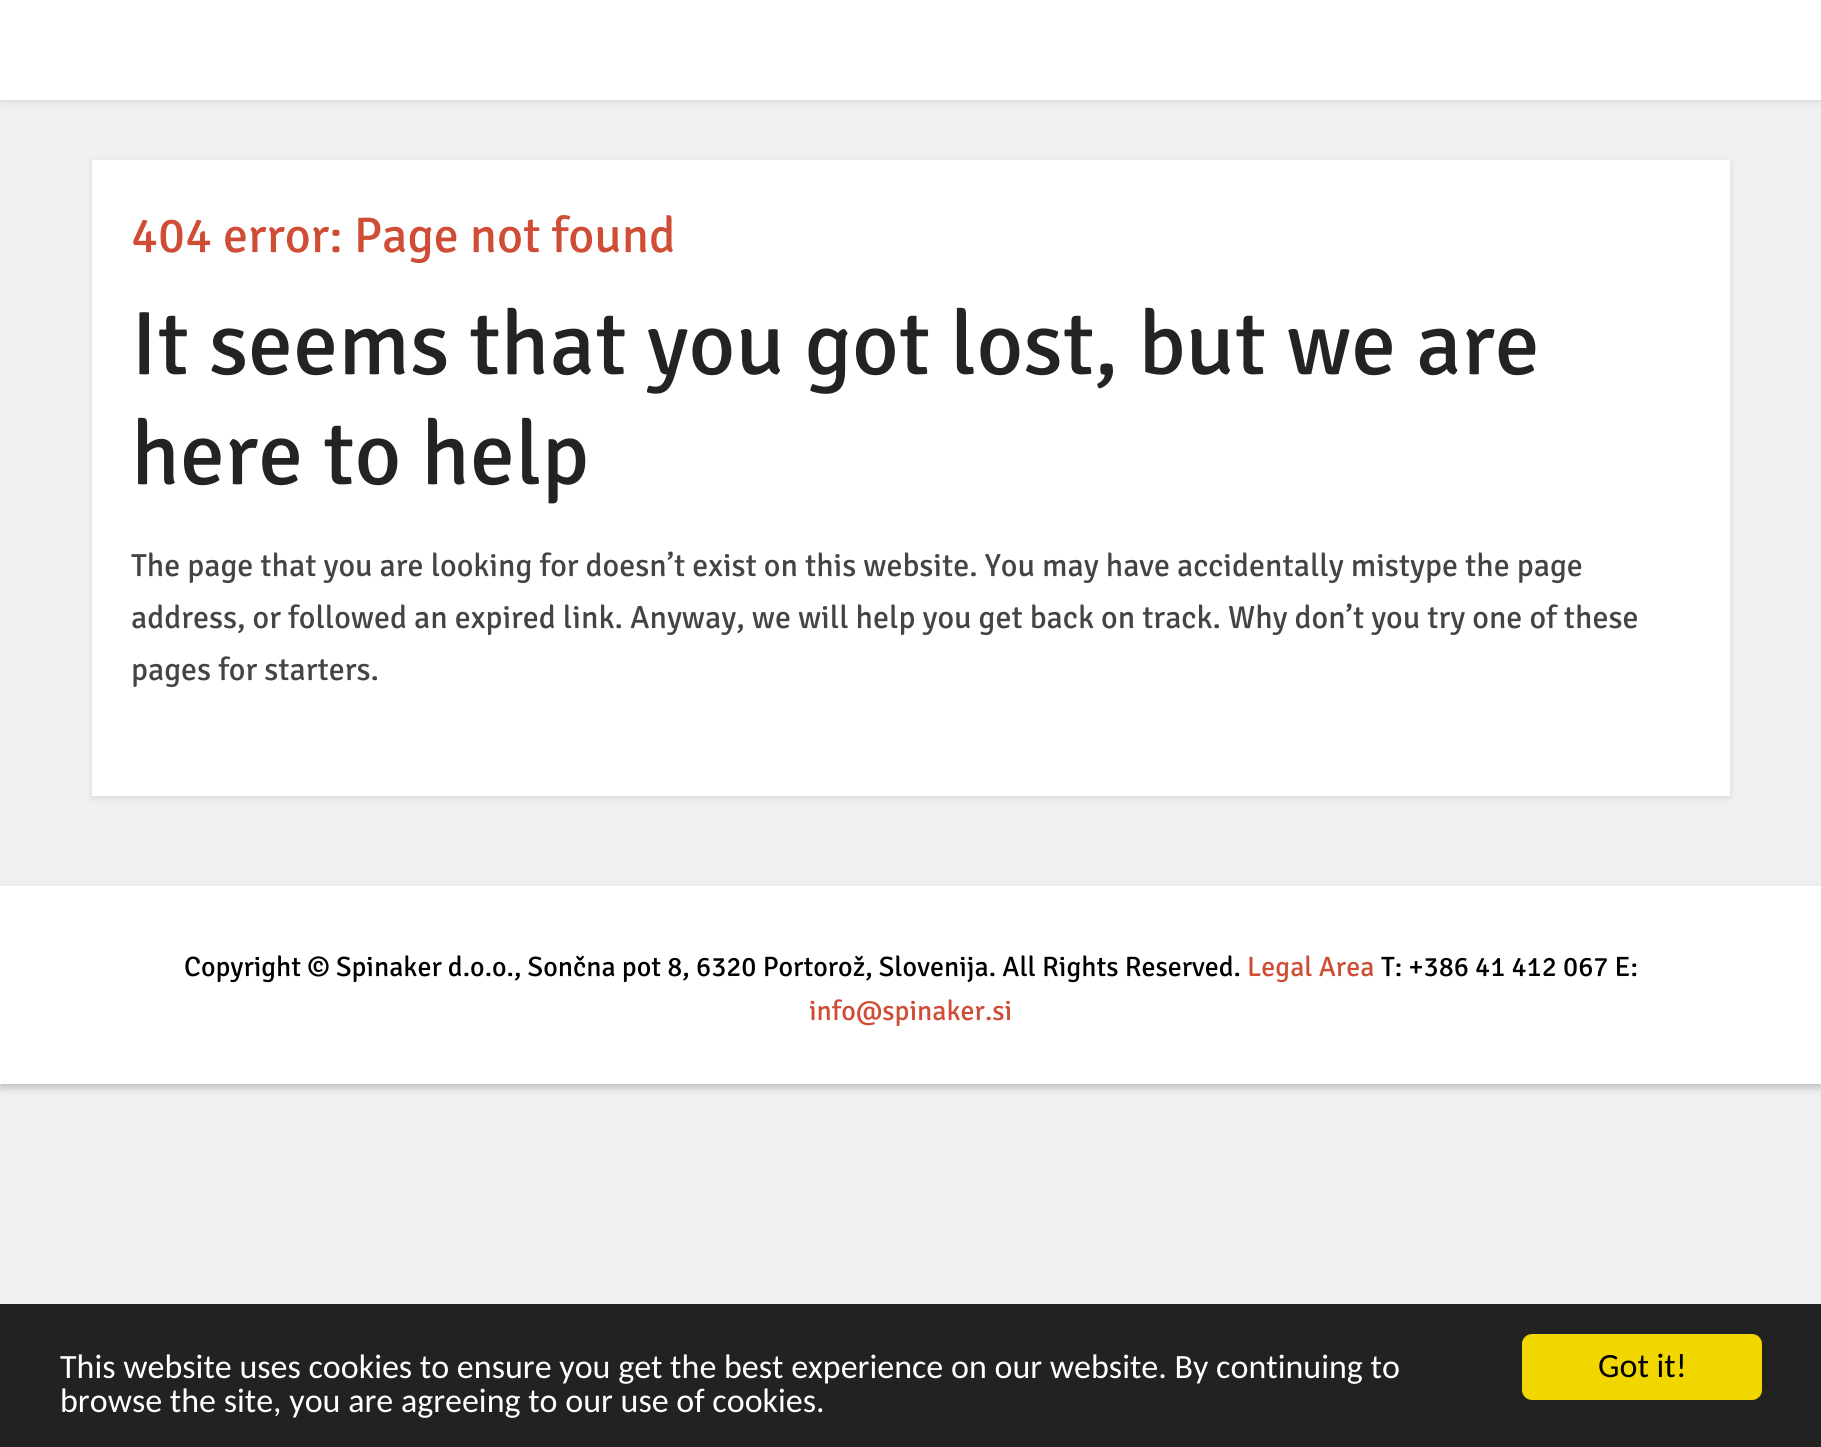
#include <cairo.h>
#include <math.h>
#include <stddef.h>

static cairo_t *ctx;

static void use_color(int r, int g, int b) {
    cairo_set_source_rgb(ctx, r / 255.0, g / 255.0, b / 255.0);
}

static void round_rect(double x, double y, double w, double h, double r) {
    cairo_new_sub_path(ctx);
    cairo_arc(ctx, x + w - r, y + h - r, r, 0, M_PI / 2);
    cairo_arc(ctx, x + r, y + h - r, r, M_PI / 2, M_PI);
    cairo_arc(ctx, x + r, y + r, r, M_PI, 1.5 * M_PI);
    cairo_arc(ctx, x + w - r, y + r, r, 1.5 * M_PI, 2 * M_PI);
    cairo_close_path(ctx);
}

static void shadow(double x, double y, double w, double h, double r, double blur, double alpha) {
    cairo_push_group_with_content(ctx, CAIRO_CONTENT_ALPHA);
    cairo_set_operator(ctx, CAIRO_OPERATOR_SOURCE);
    for (int i = 15; i >= -15 && fmin(w, h) + blur * i / 3 > 0; i -= 2) {
        double e = blur * i / 6;
        cairo_set_source_rgba(ctx, 0, 0, 0, alpha * erfc((i - 1) / 8.5) / 2);
        round_rect(x - e, y - e, w + 2 * e, h + 2 * e, fmax(0, fmin(r + e + blur * .6, fmin(w, h) / 2 + e)));
        cairo_fill(ctx);
    }
    cairo_pattern_t *soft = cairo_pop_group(ctx);
    cairo_mask(ctx, soft);
    cairo_pattern_destroy(soft);
}

int main(void) {
    cairo_surface_t *surface = cairo_image_surface_create(CAIRO_FORMAT_RGB24, 1821, 1447);
    ctx = cairo_create(surface);
    cairo_font_options_t *options = cairo_font_options_create();
    cairo_font_options_set_hint_metrics(options, CAIRO_HINT_METRICS_OFF);
    cairo_font_options_set_hint_style(options, CAIRO_HINT_STYLE_NONE);
    cairo_set_font_options(ctx, options);
    cairo_set_miter_limit(ctx, 4);
    use_color(240, 240, 240);
    cairo_paint(ctx);
    use_color(0, 0, 0);
    shadow(0, 2, 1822, 100, 0, 3, 0.1);
    use_color(255, 255, 255);
    cairo_rectangle(ctx, 0, 0, 1821, 100);
    cairo_fill(ctx);
    use_color(0, 0, 0);
    shadow(92, 162, 1638, 636, 0, 3, 0.1);
    use_color(255, 255, 255);
    cairo_rectangle(ctx, 92, 160, 1638, 636);
    cairo_fill(ctx);
    cairo_select_font_face(ctx, "Signika Light", CAIRO_FONT_SLANT_NORMAL, CAIRO_FONT_WEIGHT_NORMAL);
    cairo_set_font_size(ctx, 50);
    use_color(207, 77, 53);
    cairo_move_to(ctx, 131, 252);
    cairo_show_text(ctx, "404 error: Page not found");
    cairo_set_font_size(ctx, 90);
    use_color(35, 35, 35);
    cairo_move_to(ctx, 131, 374);
    cairo_show_text(ctx, "It seems that you got lost, but we are");
    cairo_move_to(ctx, 131, 484);
    cairo_show_text(ctx, "here to help");
    cairo_set_font_size(ctx, 32);
    use_color(68, 68, 68);
    cairo_move_to(ctx, 131, 576);
    cairo_show_text(ctx, "The page that you are looking for doesn’t exist on this website. You may have accidentally mistype the page");
    cairo_move_to(ctx, 131, 628);
    cairo_show_text(ctx, "address, or followed an expired link. Anyway, we will help you get back on track. Why don’t you try one of these");
    cairo_move_to(ctx, 131, 680);
    cairo_show_text(ctx, "pages for starters.");
    use_color(0, 0, 0);
    shadow(0, 890, 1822, 198, 0, 4, 0.2);
    use_color(255, 255, 255);
    cairo_rectangle(ctx, 0, 886, 1821, 198);
    cairo_fill(ctx);
    cairo_set_font_size(ctx, 28);
    use_color(0, 0, 0);
    cairo_move_to(ctx, 184, 976);
    cairo_show_text(ctx, "Copyright © Spinaker d.o.o., Sončna pot 8, 6320 Portorož, Slovenija. All Rights Reserved.");
    use_color(207, 77, 53);
    cairo_move_to(ctx, 1247, 976);
    cairo_show_text(ctx, "Legal Area");
    use_color(0, 0, 0);
    cairo_move_to(ctx, 1381, 976);
    cairo_show_text(ctx, "T: +386 41 412 067 E:");
    use_color(207, 77, 53);
    cairo_move_to(ctx, 809, 1020);
    cairo_show_text(ctx, "info@spinaker.si");
    use_color(34, 34, 34);
    cairo_rectangle(ctx, 0, 1304, 1821, 143);
    cairo_fill(ctx);
    cairo_select_font_face(ctx, "Carlito", CAIRO_FONT_SLANT_NORMAL, CAIRO_FONT_WEIGHT_NORMAL);
    cairo_set_font_size(ctx, 34);
    use_color(255, 255, 255);
    cairo_move_to(ctx, 60, 1378);
    cairo_show_text(ctx, "This website uses cookies to ensure you get the best experience on our website. By continuing to");
    cairo_move_to(ctx, 60, 1412);
    cairo_show_text(ctx, "browse the site, you are agreeing to our use of cookies.");
    use_color(241, 214, 0);
    round_rect(1522, 1334, 240, 66, 10);
    cairo_fill(ctx);
    use_color(0, 0, 0);
    cairo_move_to(ctx, 1598, 1377);
    cairo_show_text(ctx, "Got it!");
    cairo_surface_write_to_png(surface, "result.png");
    cairo_font_options_destroy(options);
    cairo_destroy(ctx);
    cairo_surface_destroy(surface);
    return 0;
}
